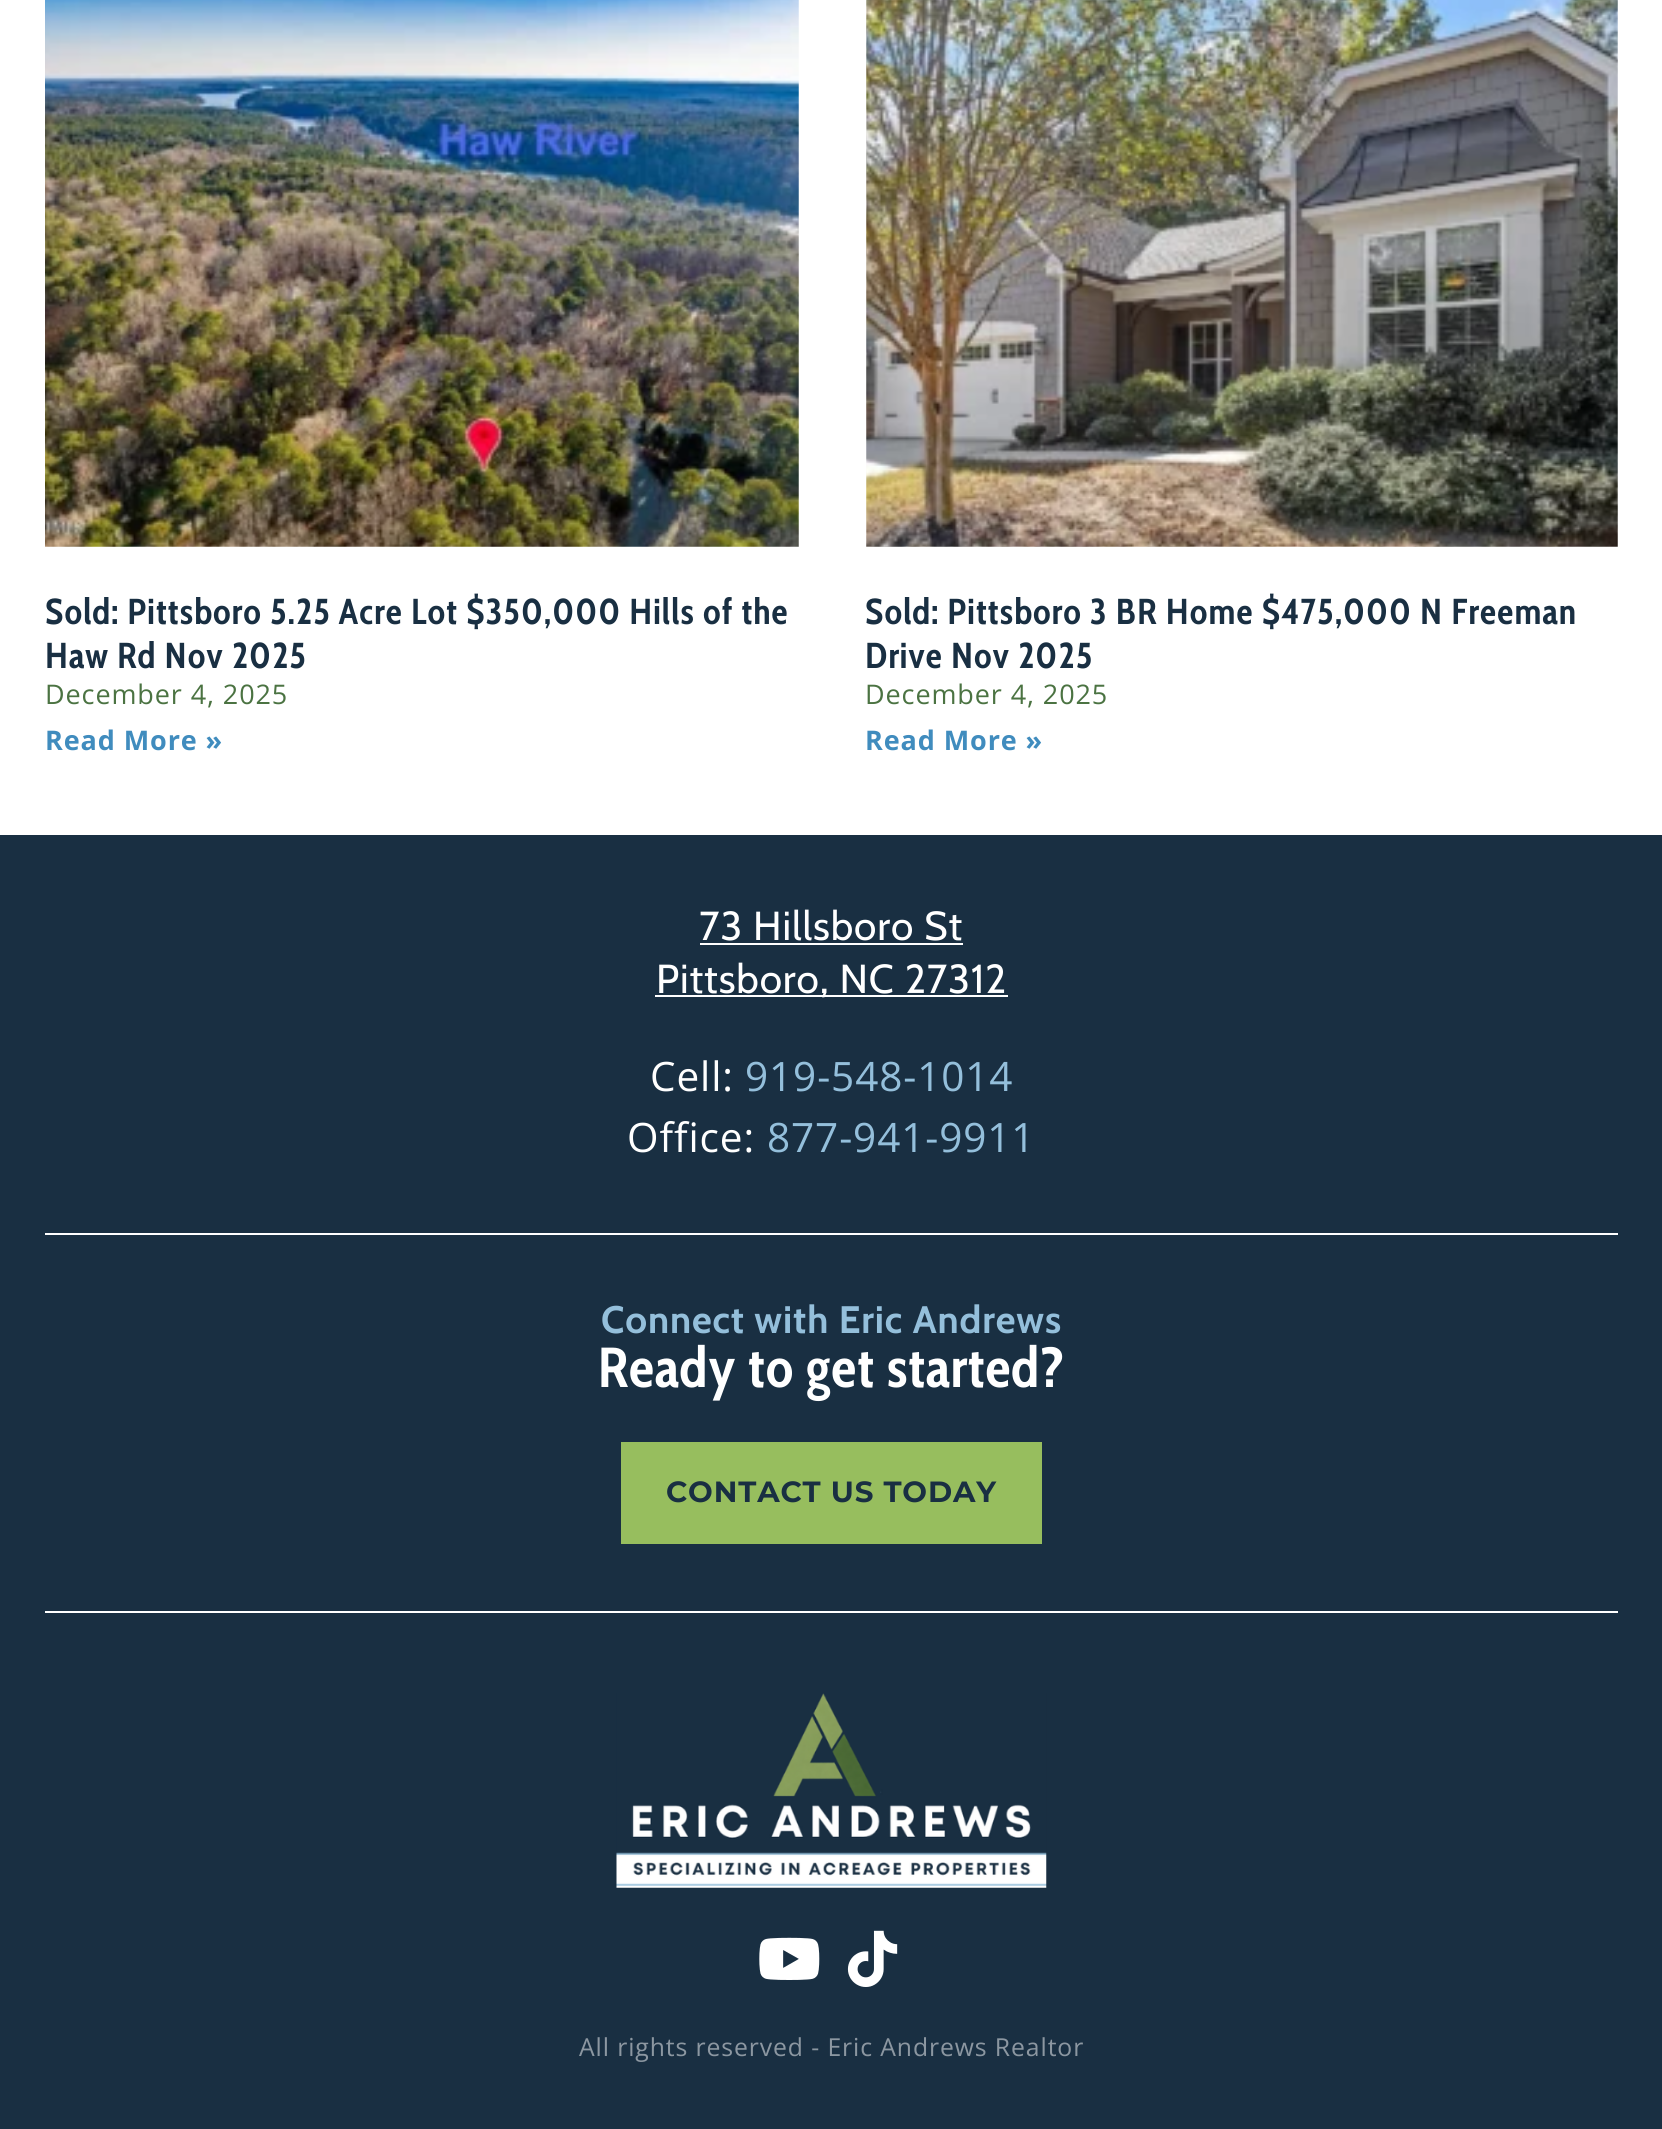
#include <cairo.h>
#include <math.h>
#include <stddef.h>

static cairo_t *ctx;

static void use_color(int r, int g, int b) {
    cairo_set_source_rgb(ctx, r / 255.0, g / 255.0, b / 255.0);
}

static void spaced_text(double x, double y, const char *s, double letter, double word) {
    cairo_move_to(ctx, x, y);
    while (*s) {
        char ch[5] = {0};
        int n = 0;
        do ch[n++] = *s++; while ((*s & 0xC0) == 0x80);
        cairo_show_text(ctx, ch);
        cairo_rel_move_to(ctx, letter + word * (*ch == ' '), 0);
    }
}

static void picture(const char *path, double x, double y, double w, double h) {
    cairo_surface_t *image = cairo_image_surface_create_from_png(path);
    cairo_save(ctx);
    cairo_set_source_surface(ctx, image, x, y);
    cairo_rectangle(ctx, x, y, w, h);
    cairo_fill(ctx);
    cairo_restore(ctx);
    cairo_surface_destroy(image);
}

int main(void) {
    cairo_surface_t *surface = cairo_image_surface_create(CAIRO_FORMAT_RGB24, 1662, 2129);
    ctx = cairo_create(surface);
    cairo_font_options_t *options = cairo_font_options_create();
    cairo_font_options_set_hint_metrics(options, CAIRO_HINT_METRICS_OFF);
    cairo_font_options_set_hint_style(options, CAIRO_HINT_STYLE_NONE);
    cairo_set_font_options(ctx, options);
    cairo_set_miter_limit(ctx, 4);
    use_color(255, 255, 255);
    cairo_paint(ctx);
    picture("img1.png", 45, 0, 754, 547);
    cairo_select_font_face(ctx, "Cabin Condensed", CAIRO_FONT_SLANT_NORMAL, CAIRO_FONT_WEIGHT_BOLD);
    cairo_set_font_size(ctx, 36);
    use_color(25, 47, 66);
    spaced_text(45, 624, "Sold: Pittsboro 5.25 Acre Lot $350,000 Hills of the", 1.12, 0);
    spaced_text(45, 668, "Haw Rd Nov 2025", 1.12, 0);
    cairo_select_font_face(ctx, "Open Sans", CAIRO_FONT_SLANT_NORMAL, CAIRO_FONT_WEIGHT_NORMAL);
    cairo_set_font_size(ctx, 27);
    use_color(75, 115, 66);
    spaced_text(45, 704, "December 4, 2025", 0.9, 0);
    cairo_select_font_face(ctx, "Open Sans", CAIRO_FONT_SLANT_NORMAL, CAIRO_FONT_WEIGHT_BOLD);
    use_color(64, 140, 190);
    spaced_text(45, 750, "Read More »", 0.9, 0);
    picture("img2.png", 866, 0, 752, 547);
    cairo_select_font_face(ctx, "Cabin Condensed", CAIRO_FONT_SLANT_NORMAL, CAIRO_FONT_WEIGHT_BOLD);
    cairo_set_font_size(ctx, 36);
    use_color(25, 47, 66);
    spaced_text(865, 624, "Sold: Pittsboro 3 BR Home $475,000 N Freeman", 1.12, 0);
    spaced_text(865, 668, "Drive Nov 2025", 1.12, 0);
    cairo_select_font_face(ctx, "Open Sans", CAIRO_FONT_SLANT_NORMAL, CAIRO_FONT_WEIGHT_NORMAL);
    cairo_set_font_size(ctx, 27);
    use_color(75, 115, 66);
    spaced_text(865, 704, "December 4, 2025", 0.9, 0);
    cairo_select_font_face(ctx, "Open Sans", CAIRO_FONT_SLANT_NORMAL, CAIRO_FONT_WEIGHT_BOLD);
    use_color(64, 140, 190);
    spaced_text(865, 750, "Read More »", 0.9, 0);
    use_color(25, 47, 66);
    cairo_rectangle(ctx, 0, 835, 1662, 1294);
    cairo_fill(ctx);
    cairo_select_font_face(ctx, "Cabin", CAIRO_FONT_SLANT_NORMAL, CAIRO_FONT_WEIGHT_NORMAL);
    cairo_set_font_size(ctx, 40.5);
    use_color(255, 255, 255);
    spaced_text(699, 940, "73 Hillsboro St", 0.9, 0);
    cairo_rectangle(ctx, 700, 943, 263, 2);
    cairo_fill(ctx);
    cairo_rectangle(ctx, 655, 995, 353, 2);
    cairo_fill(ctx);
    spaced_text(656, 993, "Pittsboro, NC 27312", 0.9, 0);
    cairo_select_font_face(ctx, "Open Sans", CAIRO_FONT_SLANT_NORMAL, CAIRO_FONT_WEIGHT_NORMAL);
    spaced_text(650, 1091, "Cell:", 0.9, 0);
    use_color(148, 191, 219);
    spaced_text(745, 1091, "919-548-1014", 0.9, 0);
    use_color(255, 255, 255);
    spaced_text(627, 1152, "Office:", 0.9, 0);
    use_color(148, 191, 219);
    spaced_text(767, 1152, "877-941-9911", 0.9, 0);
    use_color(255, 255, 255);
    cairo_rectangle(ctx, 45, 1233, 1573, 2);
    cairo_fill(ctx);
    cairo_rectangle(ctx, 45, 1611, 1573, 2);
    cairo_fill(ctx);
    cairo_select_font_face(ctx, "Cabin", CAIRO_FONT_SLANT_NORMAL, CAIRO_FONT_WEIGHT_BOLD);
    cairo_set_font_size(ctx, 38.25);
    use_color(148, 191, 219);
    spaced_text(601, 1333, "Connect with Eric Andrews", 0.9, 0);
    cairo_select_font_face(ctx, "Cabin Condensed", CAIRO_FONT_SLANT_NORMAL, CAIRO_FONT_WEIGHT_BOLD);
    cairo_set_font_size(ctx, 56.25);
    use_color(255, 255, 255);
    spaced_text(598, 1387, "Ready to get started?", 0.9, 0);
    use_color(151, 190, 94);
    cairo_rectangle(ctx, 621, 1442, 421, 102);
    cairo_fill(ctx);
    cairo_select_font_face(ctx, "Montserrat", CAIRO_FONT_SLANT_NORMAL, CAIRO_FONT_WEIGHT_BOLD);
    cairo_set_font_size(ctx, 29.25);
    use_color(25, 47, 66);
    spaced_text(666, 1502, "CONTACT US TODAY", 0.9, 0);
    picture("img3.png", 616, 1693, 431, 195);
    picture("img4.png", 759, 1937, 61, 43);
    picture("img5.png", 847, 1930, 51, 57);
    cairo_select_font_face(ctx, "Open Sans", CAIRO_FONT_SLANT_NORMAL, CAIRO_FONT_WEIGHT_NORMAL);
    cairo_set_font_size(ctx, 24.75);
    use_color(140, 151, 161);
    spaced_text(579, 2056, "All rights reserved - Eric Andrews Realtor", 0.9, 0);
    cairo_surface_write_to_png(surface, "result.png");
    cairo_font_options_destroy(options);
    cairo_destroy(ctx);
    cairo_surface_destroy(surface);
    return 0;
}
